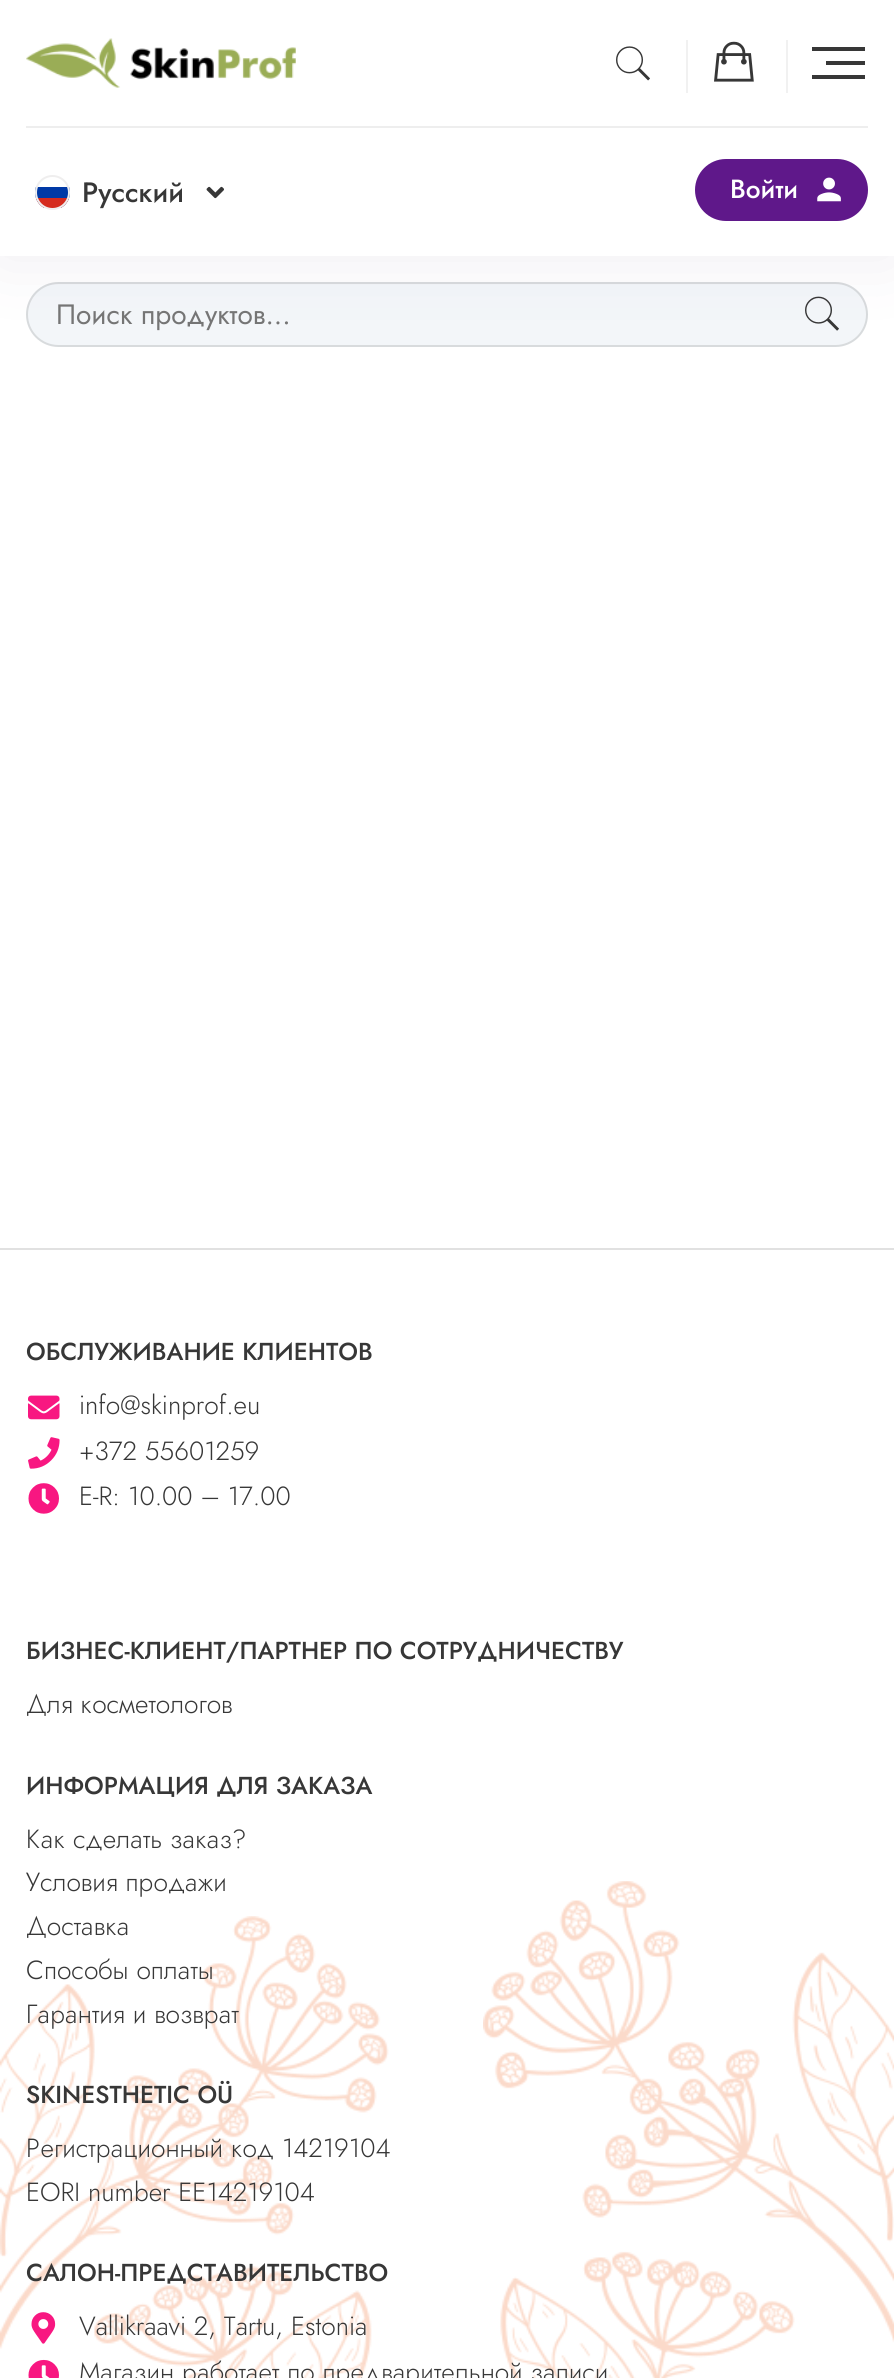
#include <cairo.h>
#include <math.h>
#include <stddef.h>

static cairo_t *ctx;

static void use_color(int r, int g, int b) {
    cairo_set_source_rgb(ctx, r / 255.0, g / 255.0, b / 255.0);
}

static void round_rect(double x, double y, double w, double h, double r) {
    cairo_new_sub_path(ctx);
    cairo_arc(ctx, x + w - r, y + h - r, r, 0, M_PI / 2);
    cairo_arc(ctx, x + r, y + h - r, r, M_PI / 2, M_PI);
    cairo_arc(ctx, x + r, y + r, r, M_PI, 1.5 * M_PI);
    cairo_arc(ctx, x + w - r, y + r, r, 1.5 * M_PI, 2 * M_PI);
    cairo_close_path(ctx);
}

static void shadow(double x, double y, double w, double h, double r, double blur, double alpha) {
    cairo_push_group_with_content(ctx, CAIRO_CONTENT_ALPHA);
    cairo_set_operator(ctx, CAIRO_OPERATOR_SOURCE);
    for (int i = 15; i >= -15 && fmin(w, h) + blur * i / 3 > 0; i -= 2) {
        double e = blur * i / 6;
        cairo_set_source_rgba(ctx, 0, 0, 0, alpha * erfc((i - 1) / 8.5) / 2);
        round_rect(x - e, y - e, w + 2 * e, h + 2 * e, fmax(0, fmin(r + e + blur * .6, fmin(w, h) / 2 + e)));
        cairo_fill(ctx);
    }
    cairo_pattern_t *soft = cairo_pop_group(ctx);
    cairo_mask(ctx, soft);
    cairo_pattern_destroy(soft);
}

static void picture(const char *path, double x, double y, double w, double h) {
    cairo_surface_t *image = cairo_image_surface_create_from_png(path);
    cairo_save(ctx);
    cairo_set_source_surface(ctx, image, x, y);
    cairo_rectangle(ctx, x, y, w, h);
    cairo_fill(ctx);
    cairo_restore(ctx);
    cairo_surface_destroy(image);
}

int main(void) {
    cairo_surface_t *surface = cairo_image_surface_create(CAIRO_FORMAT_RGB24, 894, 2378);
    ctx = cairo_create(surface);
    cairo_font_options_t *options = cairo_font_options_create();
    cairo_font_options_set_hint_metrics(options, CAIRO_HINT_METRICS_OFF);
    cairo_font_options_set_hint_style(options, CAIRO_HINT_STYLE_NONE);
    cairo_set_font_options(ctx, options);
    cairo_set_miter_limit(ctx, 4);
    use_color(255, 255, 255);
    cairo_paint(ctx);
    use_color(243, 246, 249);
    round_rect(27, 283, 840, 63, 31.5);
    cairo_fill_preserve(ctx);
    use_color(216, 219, 221);
    cairo_stroke(ctx);
    picture("img6.png", 805, 296, 34, 35);
    use_color(82, 63, 105);
    shadow(0, 0, 894, 256, 0, 35, 0.1);
    use_color(255, 255, 255);
    cairo_rectangle(ctx, 0, 0, 894, 256);
    cairo_fill(ctx);
    picture("img1.png", 26, 38, 270, 50);
    use_color(238, 238, 238);
    cairo_rectangle(ctx, 26, 126, 842, 2);
    cairo_fill(ctx);
    picture("img2.png", 616, 46, 34, 35);
    use_color(241, 241, 241);
    cairo_rectangle(ctx, 686, 40, 2, 53);
    cairo_fill(ctx);
    picture("img3.png", 714, 41, 40, 41);
    cairo_rectangle(ctx, 786, 40, 2, 53);
    cairo_fill(ctx);
    use_color(55, 55, 55);
    cairo_rectangle(ctx, 812, 47, 53, 4);
    cairo_fill(ctx);
    cairo_rectangle(ctx, 826, 61, 39, 4);
    cairo_fill(ctx);
    cairo_rectangle(ctx, 812, 75, 53, 4);
    cairo_fill(ctx);
    cairo_save(ctx);
    round_rect(35, 175, 35, 35, 17.5);
    cairo_clip(ctx);
    use_color(0, 57, 166);
    cairo_rectangle(ctx, 35, 187, 35, 21);
    cairo_fill(ctx);
    use_color(213, 43, 30);
    cairo_rectangle(ctx, 36, 198, 33, 10);
    cairo_fill(ctx);
    cairo_restore(ctx);
    cairo_arc(ctx, 52.5, 192.5, 16.5, 0, 2 * M_PI);
    use_color(239, 238, 238);
    cairo_stroke(ctx);
    cairo_select_font_face(ctx, "Jost Medium", CAIRO_FONT_SLANT_NORMAL, CAIRO_FONT_WEIGHT_NORMAL);
    cairo_set_font_size(ctx, 28);
    use_color(55, 55, 55);
    cairo_move_to(ctx, 82, 202);
    cairo_show_text(ctx, "Русский");
    picture("img4.png", 206, 186, 18, 13);
    use_color(95, 24, 138);
    round_rect(695, 159, 173, 62, 31);
    cairo_fill(ctx);
    cairo_set_font_size(ctx, 26.25);
    use_color(255, 255, 255);
    cairo_move_to(ctx, 730, 198);
    cairo_show_text(ctx, "Войти");
    picture("img5.png", 817, 177, 24, 25);
    cairo_select_font_face(ctx, "Jost", CAIRO_FONT_SLANT_NORMAL, CAIRO_FONT_WEIGHT_NORMAL);
    cairo_set_font_size(ctx, 28);
    use_color(117, 117, 117);
    cairo_move_to(ctx, 56, 324);
    cairo_show_text(ctx, "Поиск продуктов...");
    picture("img7.png", 0, 1916, 389, 462);
    use_color(225, 225, 225);
    cairo_rectangle(ctx, 0, 1248, 894, 2);
    cairo_fill(ctx);
    cairo_select_font_face(ctx, "Jost Medium", CAIRO_FONT_SLANT_NORMAL, CAIRO_FONT_WEIGHT_NORMAL);
    cairo_set_font_size(ctx, 24.5);
    use_color(55, 55, 55);
    cairo_move_to(ctx, 26, 1360);
    cairo_show_text(ctx, "ОБСЛУЖИВАНИЕ КЛИЕНТОВ");
    picture("img8.png", 28, 1395, 32, 25);
    cairo_select_font_face(ctx, "Jost Light", CAIRO_FONT_SLANT_NORMAL, CAIRO_FONT_WEIGHT_NORMAL);
    cairo_set_font_size(ctx, 26.25);
    cairo_move_to(ctx, 79, 1414);
    cairo_show_text(ctx, "info@skinprof.eu");
    picture("img9.png", 28, 1437, 32, 32);
    cairo_move_to(ctx, 79, 1460);
    cairo_show_text(ctx, "+372 55601259");
    picture("img10.png", 28, 1483, 31, 31);
    cairo_move_to(ctx, 79, 1505);
    cairo_show_text(ctx, "E-R: 10.00 – 17.00");
    cairo_select_font_face(ctx, "Jost Medium", CAIRO_FONT_SLANT_NORMAL, CAIRO_FONT_WEIGHT_NORMAL);
    cairo_set_font_size(ctx, 24.5);
    cairo_move_to(ctx, 26, 1659);
    cairo_show_text(ctx, "БИЗНЕС-КЛИЕНТ/ПАРТНЕР ПО СОТРУДНИЧЕСТВУ");
    cairo_select_font_face(ctx, "Jost Light", CAIRO_FONT_SLANT_NORMAL, CAIRO_FONT_WEIGHT_NORMAL);
    cairo_set_font_size(ctx, 26.25);
    cairo_move_to(ctx, 26, 1713);
    cairo_show_text(ctx, "Для косметологов");
    cairo_select_font_face(ctx, "Jost Medium", CAIRO_FONT_SLANT_NORMAL, CAIRO_FONT_WEIGHT_NORMAL);
    cairo_set_font_size(ctx, 24.5);
    cairo_move_to(ctx, 26, 1794);
    cairo_show_text(ctx, "ИНФОРМАЦИЯ ДЛЯ ЗАКАЗА");
    cairo_select_font_face(ctx, "Jost Light", CAIRO_FONT_SLANT_NORMAL, CAIRO_FONT_WEIGHT_NORMAL);
    cairo_set_font_size(ctx, 26.25);
    cairo_move_to(ctx, 26, 1848);
    cairo_show_text(ctx, "Как сделать заказ?");
    cairo_move_to(ctx, 26, 1891);
    cairo_show_text(ctx, "Условия продажи");
    cairo_move_to(ctx, 26, 1935);
    cairo_show_text(ctx, "Доставка");
    cairo_move_to(ctx, 26, 1979);
    cairo_show_text(ctx, "Способы оплаты");
    cairo_move_to(ctx, 26, 2023);
    cairo_show_text(ctx, "Гарантия и возврат");
    cairo_select_font_face(ctx, "Jost Medium", CAIRO_FONT_SLANT_NORMAL, CAIRO_FONT_WEIGHT_NORMAL);
    cairo_set_font_size(ctx, 24.5);
    cairo_move_to(ctx, 26, 2103);
    cairo_show_text(ctx, "SKINESTHETIC OÜ");
    cairo_select_font_face(ctx, "Jost Light", CAIRO_FONT_SLANT_NORMAL, CAIRO_FONT_WEIGHT_NORMAL);
    cairo_set_font_size(ctx, 26.25);
    cairo_move_to(ctx, 26, 2157);
    cairo_show_text(ctx, "Регистрационный код 14219104");
    cairo_move_to(ctx, 26, 2201);
    cairo_show_text(ctx, "EORI number EE14219104");
    cairo_select_font_face(ctx, "Jost Medium", CAIRO_FONT_SLANT_NORMAL, CAIRO_FONT_WEIGHT_NORMAL);
    cairo_set_font_size(ctx, 24.5);
    cairo_move_to(ctx, 26, 2281);
    cairo_show_text(ctx, "САЛОН-ПРЕДСТАВИТЕЛЬСТВО");
    picture("img11.png", 31, 2312, 25, 32);
    cairo_select_font_face(ctx, "Jost Light", CAIRO_FONT_SLANT_NORMAL, CAIRO_FONT_WEIGHT_NORMAL);
    cairo_set_font_size(ctx, 26.25);
    cairo_move_to(ctx, 79, 2335);
    cairo_show_text(ctx, "Vallikraavi 2, Tartu, Estonia");
    picture("img12.png", 28, 2359, 31, 19);
    picture("img13.png", 483, 1881, 411, 497);
    cairo_move_to(ctx, 79, 2381);
    cairo_show_text(ctx, "Магазин работает по предварительной записи");
    cairo_surface_write_to_png(surface, "result.png");
    cairo_font_options_destroy(options);
    cairo_destroy(ctx);
    cairo_surface_destroy(surface);
    return 0;
}
